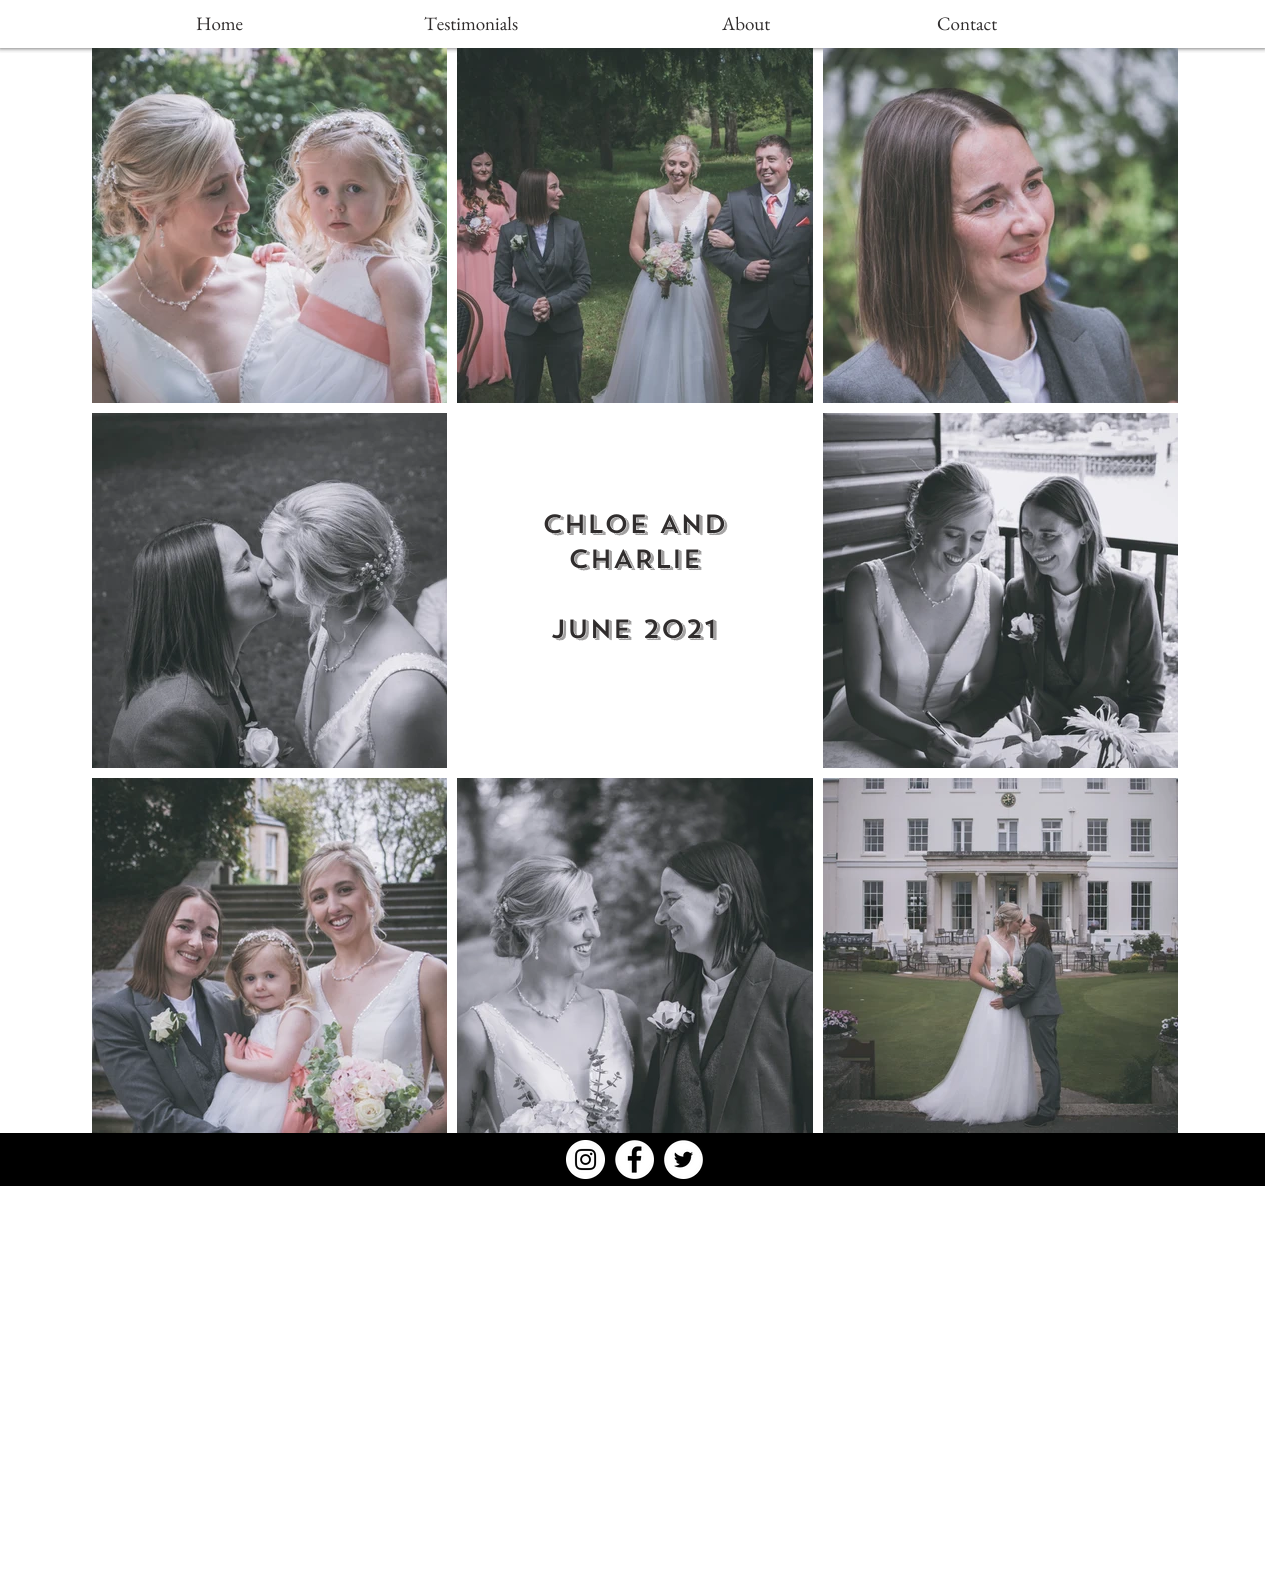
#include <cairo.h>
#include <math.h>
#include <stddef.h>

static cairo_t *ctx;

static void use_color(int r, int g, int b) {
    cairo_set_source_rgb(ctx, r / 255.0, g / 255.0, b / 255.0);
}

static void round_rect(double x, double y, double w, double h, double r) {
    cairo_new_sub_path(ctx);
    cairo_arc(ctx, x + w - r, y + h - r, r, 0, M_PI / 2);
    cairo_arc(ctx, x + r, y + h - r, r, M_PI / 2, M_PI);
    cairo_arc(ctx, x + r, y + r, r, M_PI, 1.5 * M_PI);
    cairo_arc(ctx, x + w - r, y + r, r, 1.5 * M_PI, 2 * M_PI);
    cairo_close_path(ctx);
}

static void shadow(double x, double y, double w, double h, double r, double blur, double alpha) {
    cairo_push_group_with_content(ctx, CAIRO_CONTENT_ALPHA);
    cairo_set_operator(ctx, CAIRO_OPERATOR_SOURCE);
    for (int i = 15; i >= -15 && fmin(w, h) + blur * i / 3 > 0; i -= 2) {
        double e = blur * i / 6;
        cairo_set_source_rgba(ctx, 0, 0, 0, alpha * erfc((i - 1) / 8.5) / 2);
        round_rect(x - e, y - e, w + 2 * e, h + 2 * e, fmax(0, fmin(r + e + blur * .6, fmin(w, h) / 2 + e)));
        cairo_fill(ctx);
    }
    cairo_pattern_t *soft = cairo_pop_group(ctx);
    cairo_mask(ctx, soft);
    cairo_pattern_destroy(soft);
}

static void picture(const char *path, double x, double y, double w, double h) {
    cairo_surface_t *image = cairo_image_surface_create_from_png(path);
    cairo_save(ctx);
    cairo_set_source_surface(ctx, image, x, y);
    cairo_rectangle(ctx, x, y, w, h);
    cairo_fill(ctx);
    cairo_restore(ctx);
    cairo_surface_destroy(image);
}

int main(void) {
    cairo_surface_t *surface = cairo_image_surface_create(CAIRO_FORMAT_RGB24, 1265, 1582);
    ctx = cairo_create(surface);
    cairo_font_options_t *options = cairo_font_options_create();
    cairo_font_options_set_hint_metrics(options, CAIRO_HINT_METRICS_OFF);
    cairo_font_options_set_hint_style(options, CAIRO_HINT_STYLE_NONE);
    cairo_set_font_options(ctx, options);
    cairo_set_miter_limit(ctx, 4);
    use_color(255, 255, 255);
    cairo_paint(ctx);
    cairo_save(ctx);
    cairo_rectangle(ctx, 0, 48, 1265, 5);
    cairo_clip(ctx);
    use_color(0, 0, 0);
    shadow(0, 0, 1265, 48, 0, 2.5, 0.7);
    cairo_restore(ctx);
    cairo_select_font_face(ctx, "EB Garamond", CAIRO_FONT_SLANT_NORMAL, CAIRO_FONT_WEIGHT_NORMAL);
    cairo_set_font_size(ctx, 19);
    use_color(48, 45, 45);
    cairo_move_to(ctx, 196, 30);
    cairo_show_text(ctx, "Home");
    cairo_move_to(ctx, 424, 30);
    cairo_show_text(ctx, "Testimonials");
    cairo_move_to(ctx, 722, 30);
    cairo_show_text(ctx, "About");
    cairo_move_to(ctx, 937, 30);
    cairo_show_text(ctx, "Contact");
    picture("img1.png", 92, 48, 355, 355);
    picture("img2.png", 457, 48, 356, 355);
    picture("img3.png", 823, 48, 355, 355);
    picture("img4.png", 92, 413, 355, 355);
    cairo_select_font_face(ctx, "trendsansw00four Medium", CAIRO_FONT_SLANT_NORMAL, CAIRO_FONT_WEIGHT_NORMAL);
    cairo_set_font_size(ctx, 26.25);
    cairo_move_to(ctx, 542, 533);
    cairo_show_text(ctx, "CHLOE AND");
    cairo_move_to(ctx, 568, 568);
    cairo_show_text(ctx, "CHARLIE");
    cairo_move_to(ctx, 551, 638);
    cairo_show_text(ctx, "June 2021");
    picture("img5.png", 823, 413, 355, 355);
    picture("img6.png", 92, 778, 355, 355);
    picture("img7.png", 457, 778, 356, 355);
    picture("img8.png", 823, 778, 355, 355);
    use_color(0, 0, 0);
    cairo_rectangle(ctx, 0, 1133, 1265, 53);
    cairo_fill(ctx);
    picture("img9.png", 566, 1140, 39, 39);
    picture("img10.png", 615, 1140, 39, 39);
    picture("img11.png", 664, 1140, 39, 39);
    cairo_surface_write_to_png(surface, "result.png");
    cairo_font_options_destroy(options);
    cairo_destroy(ctx);
    cairo_surface_destroy(surface);
    return 0;
}
